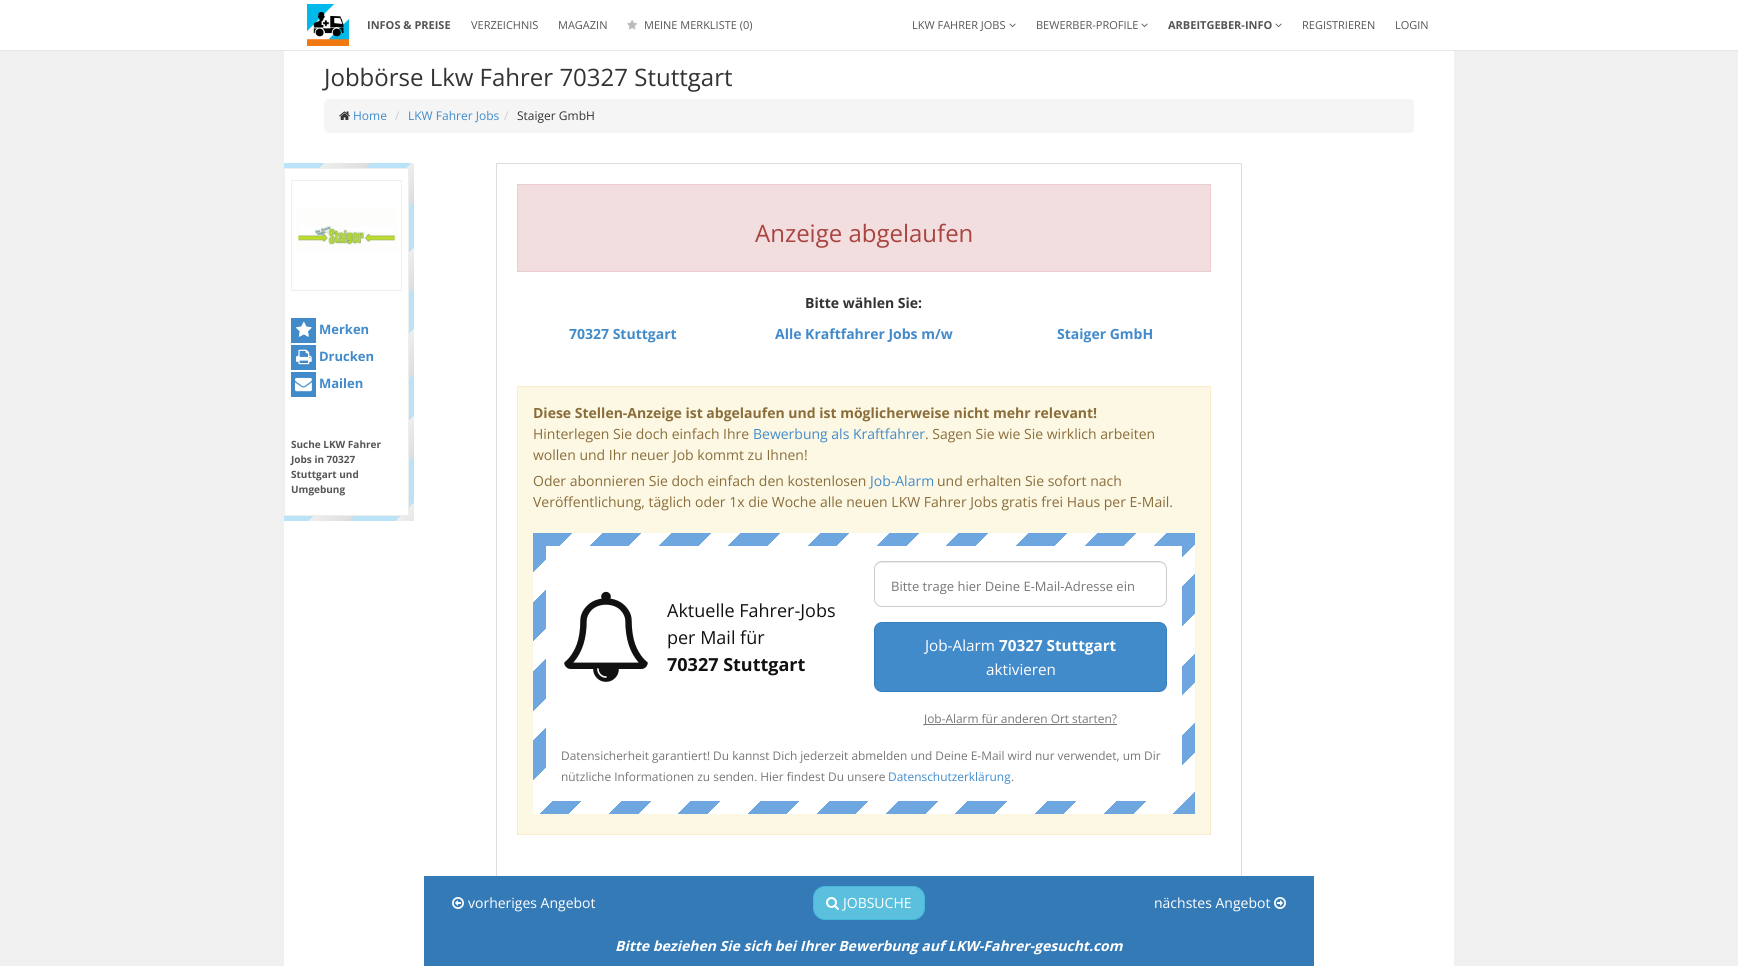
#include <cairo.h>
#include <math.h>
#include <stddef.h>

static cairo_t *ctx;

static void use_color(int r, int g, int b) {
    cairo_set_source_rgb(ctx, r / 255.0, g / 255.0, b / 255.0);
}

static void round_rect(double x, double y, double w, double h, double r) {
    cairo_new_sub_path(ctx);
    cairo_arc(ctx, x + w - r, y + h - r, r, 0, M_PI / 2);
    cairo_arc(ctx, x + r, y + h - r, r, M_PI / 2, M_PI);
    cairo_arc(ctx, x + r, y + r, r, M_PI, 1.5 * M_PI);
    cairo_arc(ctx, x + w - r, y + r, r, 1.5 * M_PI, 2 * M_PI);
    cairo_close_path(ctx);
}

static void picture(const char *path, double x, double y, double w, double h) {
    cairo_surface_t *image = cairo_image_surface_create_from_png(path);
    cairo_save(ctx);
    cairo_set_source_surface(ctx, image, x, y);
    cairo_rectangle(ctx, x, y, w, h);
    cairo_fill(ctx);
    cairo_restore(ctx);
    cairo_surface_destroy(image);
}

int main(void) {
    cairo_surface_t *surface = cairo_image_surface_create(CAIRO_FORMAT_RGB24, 1738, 966);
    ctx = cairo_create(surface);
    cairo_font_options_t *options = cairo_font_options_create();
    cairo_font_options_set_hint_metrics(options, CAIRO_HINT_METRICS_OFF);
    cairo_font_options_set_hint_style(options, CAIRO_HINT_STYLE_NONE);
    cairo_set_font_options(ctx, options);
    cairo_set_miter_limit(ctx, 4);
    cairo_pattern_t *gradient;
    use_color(240, 240, 240);
    cairo_paint(ctx);
    use_color(255, 255, 255);
    cairo_rectangle(ctx, 0, 0, 1738, 50);
    cairo_fill(ctx);
    use_color(231, 231, 231);
    cairo_rectangle(ctx, 0, 50, 1738, 1);
    cairo_fill(ctx);
    picture("img1.png", 307, 4, 42, 42);
    cairo_select_font_face(ctx, "Open Sans", CAIRO_FONT_SLANT_NORMAL, CAIRO_FONT_WEIGHT_BOLD);
    cairo_set_font_size(ctx, 11);
    use_color(85, 85, 85);
    cairo_move_to(ctx, 367, 29);
    cairo_show_text(ctx, "INFOS & PREISE");
    cairo_select_font_face(ctx, "Open Sans", CAIRO_FONT_SLANT_NORMAL, CAIRO_FONT_WEIGHT_NORMAL);
    cairo_move_to(ctx, 471, 29);
    cairo_show_text(ctx, "VERZEICHNIS");
    cairo_move_to(ctx, 558, 29);
    cairo_show_text(ctx, "MAGAZIN");
    picture("img2.png", 627, 20, 11, 10);
    cairo_move_to(ctx, 644, 29);
    cairo_show_text(ctx, "MEINE MERKLISTE (0)");
    cairo_move_to(ctx, 912, 29);
    cairo_show_text(ctx, "LKW FAHRER JOBS");
    picture("img3.png", 1009, 23, 7, 5);
    cairo_move_to(ctx, 1036, 29);
    cairo_show_text(ctx, "BEWERBER-PROFILE");
    picture("img3.png", 1141, 23, 7, 5);
    cairo_select_font_face(ctx, "Open Sans", CAIRO_FONT_SLANT_NORMAL, CAIRO_FONT_WEIGHT_BOLD);
    cairo_move_to(ctx, 1168, 29);
    cairo_show_text(ctx, "ARBEITGEBER-INFO");
    picture("img3.png", 1275, 23, 7, 5);
    cairo_select_font_face(ctx, "Open Sans", CAIRO_FONT_SLANT_NORMAL, CAIRO_FONT_WEIGHT_NORMAL);
    cairo_move_to(ctx, 1302, 29);
    cairo_show_text(ctx, "REGISTRIEREN");
    cairo_move_to(ctx, 1395, 29);
    cairo_show_text(ctx, "LOGIN");
    use_color(255, 255, 255);
    cairo_rectangle(ctx, 284, 51, 1170, 915);
    cairo_fill(ctx);
    cairo_set_font_size(ctx, 24);
    use_color(51, 51, 51);
    cairo_move_to(ctx, 324, 86);
    cairo_show_text(ctx, "Jobbörse Lkw Fahrer 70327 Stuttgart");
    use_color(245, 245, 245);
    round_rect(324, 99, 1090, 34, 4);
    cairo_fill(ctx);
    picture("img4.png", 339, 111, 11, 9);
    cairo_set_font_size(ctx, 12);
    use_color(66, 139, 202);
    cairo_move_to(ctx, 353, 120);
    cairo_show_text(ctx, "Home");
    use_color(204, 204, 204);
    cairo_move_to(ctx, 395, 120);
    cairo_show_text(ctx, "/");
    use_color(66, 139, 202);
    cairo_move_to(ctx, 408, 120);
    cairo_show_text(ctx, "LKW Fahrer Jobs");
    use_color(204, 204, 204);
    cairo_move_to(ctx, 504, 120);
    cairo_show_text(ctx, "/");
    use_color(51, 51, 51);
    cairo_move_to(ctx, 517, 120);
    cairo_show_text(ctx, "Staiger GmbH");
    gradient = cairo_pattern_create_linear(227, 220, 482, 475);
    cairo_pattern_add_color_stop_rgba(gradient, 0, 0.733, 0.89, 0.969, 1);
    cairo_pattern_add_color_stop_rgba(gradient, 0.08, 0.733, 0.89, 0.969, 1);
    cairo_pattern_add_color_stop_rgba(gradient, 0.08, 0.933, 0.933, 0.933, 1);
    cairo_pattern_add_color_stop_rgba(gradient, 0.17, 0.867, 0.867, 0.867, 1);
    cairo_pattern_add_color_stop_rgba(gradient, 0.17, 0.733, 0.89, 0.969, 1);
    cairo_pattern_add_color_stop_rgba(gradient, 0.25, 0.733, 0.89, 0.969, 1);
    cairo_pattern_add_color_stop_rgba(gradient, 0.25, 0.933, 0.933, 0.933, 1);
    cairo_pattern_add_color_stop_rgba(gradient, 0.33, 0.867, 0.867, 0.867, 1);
    cairo_pattern_add_color_stop_rgba(gradient, 0.33, 0.733, 0.89, 0.969, 1);
    cairo_pattern_add_color_stop_rgba(gradient, 0.42, 0.733, 0.89, 0.969, 1);
    cairo_pattern_add_color_stop_rgba(gradient, 0.42, 0.933, 0.933, 0.933, 1);
    cairo_pattern_add_color_stop_rgba(gradient, 0.5, 0.867, 0.867, 0.867, 1);
    cairo_pattern_add_color_stop_rgba(gradient, 0.5, 0.733, 0.89, 0.969, 1);
    cairo_pattern_add_color_stop_rgba(gradient, 0.58, 0.733, 0.89, 0.969, 1);
    cairo_pattern_add_color_stop_rgba(gradient, 0.58, 0.933, 0.933, 0.933, 1);
    cairo_pattern_add_color_stop_rgba(gradient, 0.67, 0.867, 0.867, 0.867, 1);
    cairo_pattern_add_color_stop_rgba(gradient, 0.67, 0.733, 0.89, 0.969, 1);
    cairo_pattern_add_color_stop_rgba(gradient, 0.75, 0.733, 0.89, 0.969, 1);
    cairo_pattern_add_color_stop_rgba(gradient, 0.75, 0.933, 0.933, 0.933, 1);
    cairo_pattern_add_color_stop_rgba(gradient, 0.83, 0.867, 0.867, 0.867, 1);
    cairo_pattern_add_color_stop_rgba(gradient, 0.83, 0.733, 0.89, 0.969, 1);
    cairo_pattern_add_color_stop_rgba(gradient, 0.92, 0.733, 0.89, 0.969, 1);
    cairo_pattern_add_color_stop_rgba(gradient, 0.92, 0.933, 0.933, 0.933, 1);
    cairo_pattern_add_color_stop_rgba(gradient, 1, 0.867, 0.867, 0.867, 1);
    cairo_set_source(ctx, gradient);
    cairo_pattern_destroy(gradient);
    cairo_rectangle(ctx, 284, 163, 130, 358);
    cairo_fill(ctx);
    use_color(255, 255, 255);
    cairo_rectangle(ctx, 284.5, 168.5, 124, 347);
    cairo_fill_preserve(ctx);
    use_color(238, 238, 238);
    cairo_set_line_width(ctx, 1);
    cairo_stroke(ctx);
    cairo_rectangle(ctx, 291.5, 180.5, 110, 110);
    use_color(239, 239, 239);
    cairo_stroke(ctx);
    picture("img5.png", 296, 208, 101, 43);
    use_color(66, 139, 202);
    cairo_rectangle(ctx, 291, 318, 25, 25);
    cairo_fill(ctx);
    picture("img6.png", 296, 321, 16, 16);
    cairo_select_font_face(ctx, "Open Sans", CAIRO_FONT_SLANT_NORMAL, CAIRO_FONT_WEIGHT_BOLD);
    cairo_set_font_size(ctx, 13);
    cairo_move_to(ctx, 319, 334);
    cairo_show_text(ctx, "Merken");
    cairo_rectangle(ctx, 291, 345, 25, 25);
    cairo_fill(ctx);
    picture("img7.png", 296, 349, 16, 16);
    cairo_move_to(ctx, 319, 361);
    cairo_show_text(ctx, "Drucken");
    cairo_rectangle(ctx, 291, 372, 25, 25);
    cairo_fill(ctx);
    picture("img8.png", 295, 377, 17, 15);
    cairo_move_to(ctx, 319, 388);
    cairo_show_text(ctx, "Mailen");
    cairo_set_font_size(ctx, 10);
    use_color(85, 85, 85);
    cairo_move_to(ctx, 291, 448);
    cairo_show_text(ctx, "Suche LKW Fahrer");
    cairo_move_to(ctx, 291, 463);
    cairo_show_text(ctx, "Jobs in 70327");
    cairo_move_to(ctx, 291, 478);
    cairo_show_text(ctx, "Stuttgart und");
    cairo_move_to(ctx, 291, 493);
    cairo_show_text(ctx, "Umgebung");
    cairo_rectangle(ctx, 496.5, 163.5, 745, 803);
    use_color(221, 221, 221);
    cairo_stroke(ctx);
    use_color(242, 222, 222);
    cairo_rectangle(ctx, 517.5, 184.5, 693, 87);
    cairo_fill_preserve(ctx);
    use_color(235, 204, 209);
    cairo_stroke(ctx);
    cairo_select_font_face(ctx, "Open Sans", CAIRO_FONT_SLANT_NORMAL, CAIRO_FONT_WEIGHT_NORMAL);
    cairo_set_font_size(ctx, 24);
    use_color(169, 68, 66);
    cairo_move_to(ctx, 755, 242);
    cairo_show_text(ctx, "Anzeige abgelaufen");
    cairo_select_font_face(ctx, "Open Sans", CAIRO_FONT_SLANT_NORMAL, CAIRO_FONT_WEIGHT_BOLD);
    cairo_set_font_size(ctx, 14);
    use_color(51, 51, 51);
    cairo_move_to(ctx, 805, 308);
    cairo_show_text(ctx, "Bitte wählen Sie:");
    use_color(66, 139, 202);
    cairo_move_to(ctx, 569, 339);
    cairo_show_text(ctx, "70327 Stuttgart");
    cairo_move_to(ctx, 775, 339);
    cairo_show_text(ctx, "Alle Kraftfahrer Jobs m/w");
    cairo_move_to(ctx, 1057, 339);
    cairo_show_text(ctx, "Staiger GmbH");
    use_color(252, 248, 227);
    cairo_rectangle(ctx, 517.5, 386.5, 693, 448);
    cairo_fill_preserve(ctx);
    use_color(250, 235, 204);
    cairo_stroke(ctx);
    use_color(138, 109, 59);
    cairo_move_to(ctx, 533, 418);
    cairo_show_text(ctx, "Diese Stellen-Anzeige ist abgelaufen und ist möglicherweise nicht mehr relevant!");
    cairo_select_font_face(ctx, "Open Sans", CAIRO_FONT_SLANT_NORMAL, CAIRO_FONT_WEIGHT_NORMAL);
    cairo_move_to(ctx, 533, 439);
    cairo_show_text(ctx, "Hinterlegen Sie doch einfach Ihre");
    use_color(66, 139, 202);
    cairo_move_to(ctx, 753, 439);
    cairo_show_text(ctx, "Bewerbung als Kraftfahrer");
    use_color(138, 109, 59);
    cairo_move_to(ctx, 925, 439);
    cairo_show_text(ctx, ". Sagen Sie wie Sie wirklich arbeiten");
    cairo_move_to(ctx, 533, 460);
    cairo_show_text(ctx, "wollen und Ihr neuer Job kommt zu Ihnen!");
    cairo_move_to(ctx, 533, 486);
    cairo_show_text(ctx, "Oder abonnieren Sie doch einfach den kostenlosen");
    use_color(66, 139, 202);
    cairo_move_to(ctx, 870, 486);
    cairo_show_text(ctx, "Job-Alarm");
    use_color(138, 109, 59);
    cairo_move_to(ctx, 937, 486);
    cairo_show_text(ctx, "und erhalten Sie sofort nach");
    cairo_move_to(ctx, 533, 507);
    cairo_show_text(ctx, "Veröffentlichung, täglich oder 1x die Woche alle neuen LKW Fahrer Jobs gratis frei Haus per E-Mail.");
    gradient = cairo_pattern_create_linear(628, 438, 1123, 933);
    cairo_pattern_add_color_stop_rgba(gradient, 0, 0.431, 0.655, 0.878, 1);
    cairo_pattern_add_color_stop_rgba(gradient, 0.04, 0.431, 0.655, 0.878, 1);
    cairo_pattern_add_color_stop_rgba(gradient, 0.04, 1, 1, 1, 1);
    cairo_pattern_add_color_stop_rgba(gradient, 0.07, 1, 1, 1, 1);
    cairo_pattern_add_color_stop_rgba(gradient, 0.07, 0.431, 0.655, 0.878, 1);
    cairo_pattern_add_color_stop_rgba(gradient, 0.11, 0.431, 0.655, 0.878, 1);
    cairo_pattern_add_color_stop_rgba(gradient, 0.11, 1, 1, 1, 1);
    cairo_pattern_add_color_stop_rgba(gradient, 0.14, 1, 1, 1, 1);
    cairo_pattern_add_color_stop_rgba(gradient, 0.14, 0.431, 0.655, 0.878, 1);
    cairo_pattern_add_color_stop_rgba(gradient, 0.18, 0.431, 0.655, 0.878, 1);
    cairo_pattern_add_color_stop_rgba(gradient, 0.18, 1, 1, 1, 1);
    cairo_pattern_add_color_stop_rgba(gradient, 0.21, 1, 1, 1, 1);
    cairo_pattern_add_color_stop_rgba(gradient, 0.21, 0.431, 0.655, 0.878, 1);
    cairo_pattern_add_color_stop_rgba(gradient, 0.25, 0.431, 0.655, 0.878, 1);
    cairo_pattern_add_color_stop_rgba(gradient, 0.25, 1, 1, 1, 1);
    cairo_pattern_add_color_stop_rgba(gradient, 0.29, 1, 1, 1, 1);
    cairo_pattern_add_color_stop_rgba(gradient, 0.29, 0.431, 0.655, 0.878, 1);
    cairo_pattern_add_color_stop_rgba(gradient, 0.32, 0.431, 0.655, 0.878, 1);
    cairo_pattern_add_color_stop_rgba(gradient, 0.32, 1, 1, 1, 1);
    cairo_pattern_add_color_stop_rgba(gradient, 0.36, 1, 1, 1, 1);
    cairo_pattern_add_color_stop_rgba(gradient, 0.36, 0.431, 0.655, 0.878, 1);
    cairo_pattern_add_color_stop_rgba(gradient, 0.39, 0.431, 0.655, 0.878, 1);
    cairo_pattern_add_color_stop_rgba(gradient, 0.39, 1, 1, 1, 1);
    cairo_pattern_add_color_stop_rgba(gradient, 0.43, 1, 1, 1, 1);
    cairo_pattern_add_color_stop_rgba(gradient, 0.43, 0.431, 0.655, 0.878, 1);
    cairo_pattern_add_color_stop_rgba(gradient, 0.46, 0.431, 0.655, 0.878, 1);
    cairo_pattern_add_color_stop_rgba(gradient, 0.46, 1, 1, 1, 1);
    cairo_pattern_add_color_stop_rgba(gradient, 0.5, 1, 1, 1, 1);
    cairo_pattern_add_color_stop_rgba(gradient, 0.5, 0.431, 0.655, 0.878, 1);
    cairo_pattern_add_color_stop_rgba(gradient, 0.54, 0.431, 0.655, 0.878, 1);
    cairo_pattern_add_color_stop_rgba(gradient, 0.54, 1, 1, 1, 1);
    cairo_pattern_add_color_stop_rgba(gradient, 0.57, 1, 1, 1, 1);
    cairo_pattern_add_color_stop_rgba(gradient, 0.57, 0.431, 0.655, 0.878, 1);
    cairo_pattern_add_color_stop_rgba(gradient, 0.61, 0.431, 0.655, 0.878, 1);
    cairo_pattern_add_color_stop_rgba(gradient, 0.61, 1, 1, 1, 1);
    cairo_pattern_add_color_stop_rgba(gradient, 0.64, 1, 1, 1, 1);
    cairo_pattern_add_color_stop_rgba(gradient, 0.64, 0.431, 0.655, 0.878, 1);
    cairo_pattern_add_color_stop_rgba(gradient, 0.68, 0.431, 0.655, 0.878, 1);
    cairo_pattern_add_color_stop_rgba(gradient, 0.68, 1, 1, 1, 1);
    cairo_pattern_add_color_stop_rgba(gradient, 0.71, 1, 1, 1, 1);
    cairo_pattern_add_color_stop_rgba(gradient, 0.71, 0.431, 0.655, 0.878, 1);
    cairo_pattern_add_color_stop_rgba(gradient, 0.75, 0.431, 0.655, 0.878, 1);
    cairo_pattern_add_color_stop_rgba(gradient, 0.75, 1, 1, 1, 1);
    cairo_pattern_add_color_stop_rgba(gradient, 0.79, 1, 1, 1, 1);
    cairo_pattern_add_color_stop_rgba(gradient, 0.79, 0.431, 0.655, 0.878, 1);
    cairo_pattern_add_color_stop_rgba(gradient, 0.82, 0.431, 0.655, 0.878, 1);
    cairo_pattern_add_color_stop_rgba(gradient, 0.82, 1, 1, 1, 1);
    cairo_pattern_add_color_stop_rgba(gradient, 0.86, 1, 1, 1, 1);
    cairo_pattern_add_color_stop_rgba(gradient, 0.86, 0.431, 0.655, 0.878, 1);
    cairo_pattern_add_color_stop_rgba(gradient, 0.89, 0.431, 0.655, 0.878, 1);
    cairo_pattern_add_color_stop_rgba(gradient, 0.89, 1, 1, 1, 1);
    cairo_pattern_add_color_stop_rgba(gradient, 0.93, 1, 1, 1, 1);
    cairo_pattern_add_color_stop_rgba(gradient, 0.93, 0.431, 0.655, 0.878, 1);
    cairo_pattern_add_color_stop_rgba(gradient, 0.96, 0.431, 0.655, 0.878, 1);
    cairo_pattern_add_color_stop_rgba(gradient, 0.96, 1, 1, 1, 1);
    cairo_pattern_add_color_stop_rgba(gradient, 1, 1, 1, 1, 1);
    cairo_set_source(ctx, gradient);
    cairo_pattern_destroy(gradient);
    cairo_rectangle(ctx, 533, 533, 662, 281);
    cairo_fill(ctx);
    use_color(255, 255, 255);
    cairo_rectangle(ctx, 546, 546, 636, 255);
    cairo_fill(ctx);
    picture("img9.png", 564, 591, 84, 91);
    cairo_set_font_size(ctx, 18);
    use_color(17, 17, 17);
    cairo_move_to(ctx, 667, 617);
    cairo_show_text(ctx, "Aktuelle Fahrer-Jobs");
    cairo_move_to(ctx, 667, 644);
    cairo_show_text(ctx, "per Mail für");
    cairo_select_font_face(ctx, "Open Sans", CAIRO_FONT_SLANT_NORMAL, CAIRO_FONT_WEIGHT_BOLD);
    cairo_move_to(ctx, 667, 671);
    cairo_show_text(ctx, "70327 Stuttgart");
    use_color(236, 236, 236);
    cairo_new_path(ctx);
    cairo_move_to(ctx, 882, 563);
    cairo_line_to(ctx, 1159, 563);
    cairo_curve_to(ctx, 1163, 563, 1166, 566, 1166, 570);
    cairo_line_to(ctx, 1166, 569);
    cairo_curve_to(ctx, 1166, 565, 1163, 562, 1159, 562);
    cairo_line_to(ctx, 882, 562);
    cairo_curve_to(ctx, 878, 562, 875, 565, 875, 569);
    cairo_line_to(ctx, 875, 570);
    cairo_curve_to(ctx, 875, 566, 878, 563, 882, 563);
    cairo_close_path(ctx);
    cairo_fill(ctx);
    round_rect(874.5, 561.5, 292, 45, 7.5);
    use_color(204, 204, 204);
    cairo_stroke(ctx);
    cairo_select_font_face(ctx, "Open Sans", CAIRO_FONT_SLANT_NORMAL, CAIRO_FONT_WEIGHT_NORMAL);
    cairo_set_font_size(ctx, 13);
    use_color(119, 119, 119);
    cairo_move_to(ctx, 891, 591);
    cairo_show_text(ctx, "Bitte trage hier Deine E-Mail-Adresse ein");
    use_color(66, 139, 202);
    round_rect(874.5, 622.5, 292, 69, 7.5);
    cairo_fill_preserve(ctx);
    use_color(53, 126, 189);
    cairo_stroke(ctx);
    cairo_set_font_size(ctx, 15.25);
    use_color(255, 255, 255);
    cairo_move_to(ctx, 925, 651);
    cairo_show_text(ctx, "Job-Alarm");
    cairo_select_font_face(ctx, "Open Sans", CAIRO_FONT_SLANT_NORMAL, CAIRO_FONT_WEIGHT_BOLD);
    cairo_move_to(ctx, 999, 651);
    cairo_show_text(ctx, "70327 Stuttgart");
    cairo_select_font_face(ctx, "Open Sans", CAIRO_FONT_SLANT_NORMAL, CAIRO_FONT_WEIGHT_NORMAL);
    cairo_move_to(ctx, 986, 675);
    cairo_show_text(ctx, "aktivieren");
    use_color(119, 119, 119);
    cairo_rectangle(ctx, 924, 724, 193, 1);
    cairo_fill(ctx);
    cairo_set_font_size(ctx, 11.9);
    cairo_move_to(ctx, 924, 723);
    cairo_show_text(ctx, "Job-Alarm für anderen Ort starten?");
    cairo_move_to(ctx, 561, 760);
    cairo_show_text(ctx, "Datensicherheit garantiert! Du kannst Dich jederzeit abmelden und Deine E-Mail wird nur verwendet, um Dir");
    cairo_move_to(ctx, 561, 781);
    cairo_show_text(ctx, "nützliche Informationen zu senden. Hier findest Du unsere");
    use_color(66, 139, 202);
    cairo_move_to(ctx, 888, 781);
    cairo_show_text(ctx, "Datenschutzerklärung");
    use_color(119, 119, 119);
    cairo_move_to(ctx, 1011, 781);
    cairo_show_text(ctx, ".");
    use_color(51, 122, 183);
    cairo_rectangle(ctx, 424, 876, 890, 90);
    cairo_fill(ctx);
    picture("img10.png", 452, 897, 12, 12);
    cairo_set_font_size(ctx, 14);
    use_color(255, 255, 255);
    cairo_move_to(ctx, 468, 908);
    cairo_show_text(ctx, "vorheriges Angebot");
    use_color(91, 192, 222);
    round_rect(813.5, 886.5, 111, 33, 11.5);
    cairo_fill_preserve(ctx);
    use_color(70, 184, 218);
    cairo_stroke(ctx);
    picture("img11.png", 826, 897, 13, 13);
    use_color(255, 255, 255);
    cairo_move_to(ctx, 843, 908);
    cairo_show_text(ctx, "JOBSUCHE");
    cairo_move_to(ctx, 1154, 908);
    cairo_show_text(ctx, "nächstes Angebot");
    picture("img12.png", 1274, 897, 12, 12);
    cairo_select_font_face(ctx, "Open Sans", CAIRO_FONT_SLANT_ITALIC, CAIRO_FONT_WEIGHT_BOLD);
    cairo_move_to(ctx, 615, 951);
    cairo_show_text(ctx, "Bitte beziehen Sie sich bei Ihrer Bewerbung auf LKW-Fahrer-gesucht.com");
    cairo_surface_write_to_png(surface, "result.png");
    cairo_font_options_destroy(options);
    cairo_destroy(ctx);
    cairo_surface_destroy(surface);
    return 0;
}
